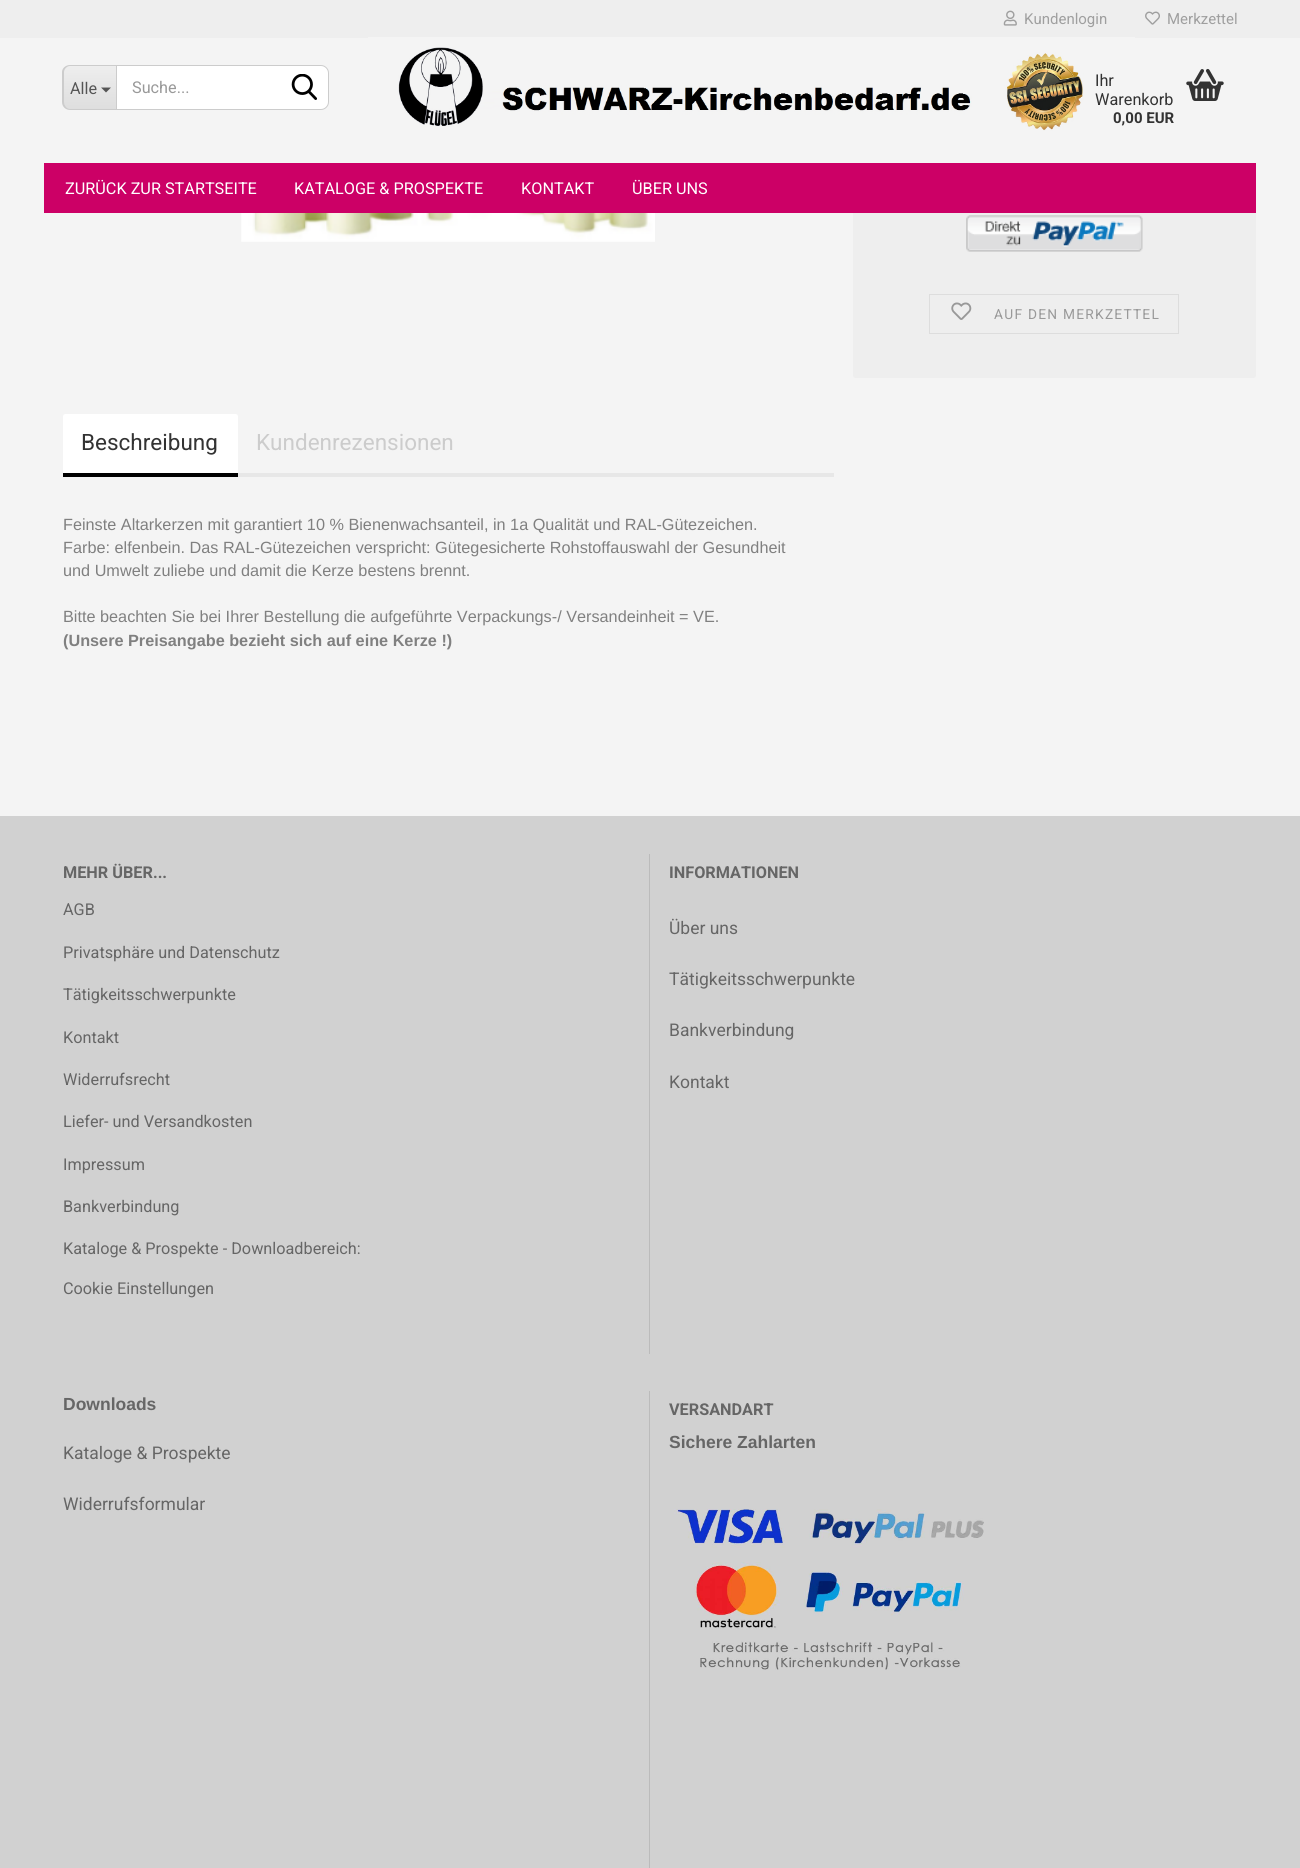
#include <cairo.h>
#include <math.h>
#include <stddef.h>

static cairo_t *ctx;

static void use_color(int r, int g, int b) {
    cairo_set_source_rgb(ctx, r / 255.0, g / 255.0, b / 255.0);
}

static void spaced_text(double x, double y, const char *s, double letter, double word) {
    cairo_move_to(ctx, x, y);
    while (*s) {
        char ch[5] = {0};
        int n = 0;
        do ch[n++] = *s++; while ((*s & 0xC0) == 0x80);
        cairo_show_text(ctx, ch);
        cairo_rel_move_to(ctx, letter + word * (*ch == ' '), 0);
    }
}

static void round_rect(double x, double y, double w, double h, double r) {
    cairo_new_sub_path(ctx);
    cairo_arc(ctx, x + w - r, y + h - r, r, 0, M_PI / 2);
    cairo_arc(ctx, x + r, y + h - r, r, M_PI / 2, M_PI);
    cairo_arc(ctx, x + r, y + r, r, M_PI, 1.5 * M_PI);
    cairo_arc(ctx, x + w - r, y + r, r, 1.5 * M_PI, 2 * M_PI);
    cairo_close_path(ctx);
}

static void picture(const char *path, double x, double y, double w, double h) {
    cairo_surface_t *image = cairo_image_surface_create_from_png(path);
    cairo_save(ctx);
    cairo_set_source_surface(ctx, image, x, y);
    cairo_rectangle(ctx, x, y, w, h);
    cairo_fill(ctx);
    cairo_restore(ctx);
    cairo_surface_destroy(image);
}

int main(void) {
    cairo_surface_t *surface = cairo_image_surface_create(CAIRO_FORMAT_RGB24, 1300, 1868);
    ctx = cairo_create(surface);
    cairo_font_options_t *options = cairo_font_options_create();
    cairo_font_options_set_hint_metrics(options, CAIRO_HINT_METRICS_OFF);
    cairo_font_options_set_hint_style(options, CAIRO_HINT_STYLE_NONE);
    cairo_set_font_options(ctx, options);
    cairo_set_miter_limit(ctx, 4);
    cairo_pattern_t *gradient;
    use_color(244, 244, 244);
    cairo_paint(ctx);
    use_color(238, 238, 238);
    round_rect(853, -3, 403, 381, 2.5);
    cairo_fill(ctx);
    use_color(244, 244, 244);
    cairo_rectangle(ctx, 853, 38, 403, 150);
    cairo_fill(ctx);
    use_color(238, 238, 238);
    cairo_rectangle(ctx, 0, 0, 1300, 38);
    cairo_fill(ctx);
    picture("img1.png", 1003, 10, 14, 16);
    cairo_select_font_face(ctx, "Roboto", CAIRO_FONT_SLANT_NORMAL, CAIRO_FONT_WEIGHT_NORMAL);
    cairo_set_font_size(ctx, 15);
    use_color(159, 159, 159);
    cairo_move_to(ctx, 1024, 24);
    cairo_show_text(ctx, "Kundenlogin");
    picture("img2.png", 1145, 11, 15, 14);
    cairo_move_to(ctx, 1167, 24);
    cairo_show_text(ctx, "Merkzettel");
    picture("img3.png", 368, 37, 767, 94);
    cairo_save(ctx);
    cairo_new_path(ctx);
    cairo_move_to(ctx, 71, 65);
    cairo_line_to(ctx, 116, 65);
    cairo_line_to(ctx, 116, 110);
    cairo_line_to(ctx, 71, 110);
    cairo_curve_to(ctx, 66.5, 110, 63, 106.5, 63, 102);
    cairo_line_to(ctx, 63, 73);
    cairo_curve_to(ctx, 63, 68.5, 66.5, 65, 71, 65);
    cairo_close_path(ctx);
    cairo_clip(ctx);
    gradient = cairo_pattern_create_linear(90, 66, 90, 109);
    cairo_pattern_add_color_stop_rgba(gradient, 0, 0.933, 0.933, 0.933, 1);
    cairo_pattern_add_color_stop_rgba(gradient, 1, 0.871, 0.871, 0.871, 1);
    cairo_set_source(ctx, gradient);
    cairo_pattern_destroy(gradient);
    cairo_rectangle(ctx, 64, 66, 52, 43);
    cairo_fill(ctx);
    cairo_restore(ctx);
    use_color(204, 204, 204);
    cairo_set_fill_rule(ctx, CAIRO_FILL_RULE_EVEN_ODD);
    cairo_new_path(ctx);
    cairo_move_to(ctx, 70, 65);
    cairo_line_to(ctx, 116, 65);
    cairo_line_to(ctx, 116, 110);
    cairo_line_to(ctx, 70, 110);
    cairo_curve_to(ctx, 66, 110, 62, 107, 62, 102);
    cairo_line_to(ctx, 62, 72);
    cairo_curve_to(ctx, 62, 68, 66, 65, 70, 65);
    cairo_close_path(ctx);
    cairo_move_to(ctx, 70, 66);
    cairo_line_to(ctx, 116, 66);
    cairo_line_to(ctx, 116, 109);
    cairo_line_to(ctx, 70, 109);
    cairo_curve_to(ctx, 67, 109, 64, 106, 64, 102);
    cairo_line_to(ctx, 64, 72);
    cairo_curve_to(ctx, 64, 69, 67, 66, 70, 66);
    cairo_close_path(ctx);
    cairo_fill(ctx);
    cairo_set_font_size(ctx, 16.25);
    use_color(85, 85, 85);
    cairo_move_to(ctx, 70, 94);
    cairo_show_text(ctx, "Alle");
    cairo_set_fill_rule(ctx, CAIRO_FILL_RULE_WINDING);
    cairo_new_path(ctx);
    cairo_move_to(ctx, 101, 87.5);
    cairo_line_to(ctx, 111, 87.5);
    cairo_line_to(ctx, 106, 92.5);
    cairo_close_path(ctx);
    cairo_fill(ctx);
    use_color(255, 255, 255);
    cairo_new_path(ctx);
    cairo_move_to(ctx, 116.5, 65.5);
    cairo_line_to(ctx, 321, 65.5);
    cairo_curve_to(ctx, 325, 65.5, 328.5, 69, 328.5, 73);
    cairo_line_to(ctx, 328.5, 102);
    cairo_curve_to(ctx, 328.5, 106, 325, 109.5, 321, 109.5);
    cairo_line_to(ctx, 116.5, 109.5);
    cairo_close_path(ctx);
    cairo_fill_preserve(ctx);
    use_color(204, 204, 204);
    cairo_set_line_width(ctx, 1);
    cairo_stroke(ctx);
    use_color(153, 153, 153);
    cairo_move_to(ctx, 132, 93);
    cairo_show_text(ctx, "Suche...");
    picture("img4.png", 291, 74, 26, 26);
    use_color(51, 51, 51);
    cairo_move_to(ctx, 1095, 86);
    cairo_show_text(ctx, "Ihr");
    cairo_move_to(ctx, 1095, 105);
    cairo_show_text(ctx, "Warenkorb");
    cairo_select_font_face(ctx, "Roboto", CAIRO_FONT_SLANT_NORMAL, CAIRO_FONT_WEIGHT_BOLD);
    cairo_set_font_size(ctx, 15);
    cairo_move_to(ctx, 1113, 123);
    cairo_show_text(ctx, "0,00 EUR");
    picture("img5.png", 1186, 68, 38, 33);
    use_color(204, 0, 102);
    cairo_rectangle(ctx, 44, 163, 1212, 50);
    cairo_fill(ctx);
    cairo_select_font_face(ctx, "Roboto", CAIRO_FONT_SLANT_NORMAL, CAIRO_FONT_WEIGHT_NORMAL);
    cairo_set_font_size(ctx, 16.25);
    use_color(255, 255, 255);
    cairo_move_to(ctx, 65, 194);
    cairo_show_text(ctx, "ZURÜCK ZUR STARTSEITE");
    cairo_move_to(ctx, 294, 194);
    cairo_show_text(ctx, "KATALOGE & PROSPEKTE");
    cairo_move_to(ctx, 521, 194);
    cairo_show_text(ctx, "KONTAKT");
    cairo_move_to(ctx, 632, 194);
    cairo_show_text(ctx, "ÜBER UNS");
    picture("img6.png", 241, 213, 414, 29);
    picture("img7.png", 966, 215, 177, 37);
    cairo_rectangle(ctx, 929.5, 294.5, 249, 39);
    use_color(221, 221, 221);
    cairo_stroke(ctx);
    picture("img8.png", 951, 302, 21, 18);
    cairo_set_font_size(ctx, 13.75);
    use_color(153, 153, 153);
    spaced_text(994, 319, "AUF DEN MERKZETTEL", 1.25, 0);
    use_color(231, 231, 231);
    cairo_rectangle(ctx, 238, 473, 596, 4);
    cairo_fill(ctx);
    use_color(255, 255, 255);
    cairo_new_path(ctx);
    cairo_move_to(ctx, 65.5, 414);
    cairo_line_to(ctx, 235.5, 414);
    cairo_curve_to(ctx, 237, 414, 238, 415, 238, 416.5);
    cairo_line_to(ctx, 238, 476);
    cairo_line_to(ctx, 63, 476);
    cairo_line_to(ctx, 63, 416.5);
    cairo_curve_to(ctx, 63, 415, 64, 414, 65.5, 414);
    cairo_close_path(ctx);
    cairo_fill(ctx);
    use_color(0, 0, 0);
    cairo_rectangle(ctx, 63, 473, 175, 4);
    cairo_fill(ctx);
    cairo_set_font_size(ctx, 22.5);
    use_color(51, 51, 51);
    cairo_move_to(ctx, 81, 450);
    cairo_show_text(ctx, "Beschreibung");
    use_color(204, 204, 204);
    cairo_move_to(ctx, 256, 450);
    cairo_show_text(ctx, "Kundenrezensionen");
    cairo_select_font_face(ctx, "Liberation Sans", CAIRO_FONT_SLANT_NORMAL, CAIRO_FONT_WEIGHT_NORMAL);
    cairo_set_font_size(ctx, 16.25);
    use_color(128, 128, 128);
    cairo_move_to(ctx, 63, 530);
    cairo_show_text(ctx, "Feinste Altarkerzen mit garantiert 10 % Bienenwachsanteil, in 1a Qualität und RAL-Gütezeichen.");
    cairo_move_to(ctx, 63, 553);
    cairo_show_text(ctx, "Farbe: elfenbein. Das RAL-Gütezeichen verspricht: Gütegesicherte Rohstoffauswahl der Gesundheit");
    cairo_move_to(ctx, 63, 576);
    cairo_show_text(ctx, "und Umwelt zuliebe und damit die Kerze bestens brennt.");
    cairo_move_to(ctx, 63, 622);
    cairo_show_text(ctx, "Bitte beachten Sie bei Ihrer Bestellung die aufgeführte Verpackungs-/ Versandeinheit = VE.");
    cairo_select_font_face(ctx, "Liberation Sans", CAIRO_FONT_SLANT_NORMAL, CAIRO_FONT_WEIGHT_BOLD);
    cairo_move_to(ctx, 63, 646);
    cairo_show_text(ctx, "(Unsere Preisangabe bezieht sich auf eine Kerze !)");
    use_color(209, 209, 209);
    cairo_rectangle(ctx, 0, 816, 1300, 1052);
    cairo_fill(ctx);
    use_color(187, 187, 187);
    cairo_rectangle(ctx, 649, 854, 1, 500);
    cairo_fill(ctx);
    cairo_select_font_face(ctx, "Roboto", CAIRO_FONT_SLANT_NORMAL, CAIRO_FONT_WEIGHT_BOLD);
    use_color(102, 102, 102);
    cairo_move_to(ctx, 63, 878);
    cairo_show_text(ctx, "MEHR ÜBER...");
    cairo_select_font_face(ctx, "Roboto", CAIRO_FONT_SLANT_NORMAL, CAIRO_FONT_WEIGHT_NORMAL);
    cairo_move_to(ctx, 63, 915);
    cairo_show_text(ctx, "AGB");
    cairo_move_to(ctx, 63, 958);
    cairo_show_text(ctx, "Privatsphäre und Datenschutz");
    cairo_move_to(ctx, 63, 1000);
    cairo_show_text(ctx, "Tätigkeitsschwerpunkte");
    cairo_move_to(ctx, 63, 1043);
    cairo_show_text(ctx, "Kontakt");
    cairo_move_to(ctx, 63, 1085);
    cairo_show_text(ctx, "Widerrufsrecht");
    cairo_move_to(ctx, 63, 1127);
    cairo_show_text(ctx, "Liefer- und Versandkosten");
    cairo_move_to(ctx, 63, 1170);
    cairo_show_text(ctx, "Impressum");
    cairo_move_to(ctx, 63, 1212);
    cairo_show_text(ctx, "Bankverbindung");
    cairo_move_to(ctx, 63, 1254);
    cairo_show_text(ctx, "Kataloge & Prospekte - Downloadbereich:");
    cairo_move_to(ctx, 63, 1294);
    cairo_show_text(ctx, "Cookie Einstellungen");
    cairo_select_font_face(ctx, "Roboto", CAIRO_FONT_SLANT_NORMAL, CAIRO_FONT_WEIGHT_BOLD);
    cairo_move_to(ctx, 669, 878);
    cairo_show_text(ctx, "INFORMATIONEN");
    cairo_select_font_face(ctx, "Roboto", CAIRO_FONT_SLANT_NORMAL, CAIRO_FONT_WEIGHT_NORMAL);
    cairo_set_font_size(ctx, 17.5);
    cairo_move_to(ctx, 669, 934);
    cairo_show_text(ctx, "Über uns");
    cairo_move_to(ctx, 669, 985);
    cairo_show_text(ctx, "Tätigkeitsschwerpunkte");
    cairo_move_to(ctx, 669, 1036);
    cairo_show_text(ctx, "Bankverbindung");
    cairo_move_to(ctx, 669, 1088);
    cairo_show_text(ctx, "Kontakt");
    use_color(187, 187, 187);
    cairo_rectangle(ctx, 649, 1391, 1, 477);
    cairo_fill(ctx);
    cairo_select_font_face(ctx, "Liberation Sans", CAIRO_FONT_SLANT_NORMAL, CAIRO_FONT_WEIGHT_BOLD);
    use_color(102, 102, 102);
    cairo_move_to(ctx, 63, 1410);
    cairo_show_text(ctx, "Downloads");
    cairo_select_font_face(ctx, "Roboto", CAIRO_FONT_SLANT_NORMAL, CAIRO_FONT_WEIGHT_NORMAL);
    cairo_move_to(ctx, 63, 1459);
    cairo_show_text(ctx, "Kataloge & Prospekte");
    cairo_move_to(ctx, 63, 1510);
    cairo_show_text(ctx, "Widerrufsformular");
    cairo_select_font_face(ctx, "Roboto", CAIRO_FONT_SLANT_NORMAL, CAIRO_FONT_WEIGHT_BOLD);
    cairo_set_font_size(ctx, 16.25);
    cairo_move_to(ctx, 669, 1415);
    cairo_show_text(ctx, "VERSANDART");
    cairo_select_font_face(ctx, "Liberation Sans", CAIRO_FONT_SLANT_NORMAL, CAIRO_FONT_WEIGHT_BOLD);
    cairo_set_font_size(ctx, 17.5);
    cairo_move_to(ctx, 669, 1448);
    cairo_show_text(ctx, "Sichere Zahlarten");
    picture("img9.png", 674, 1509, 310, 161);
    cairo_surface_write_to_png(surface, "result.png");
    cairo_font_options_destroy(options);
    cairo_destroy(ctx);
    cairo_surface_destroy(surface);
    return 0;
}
